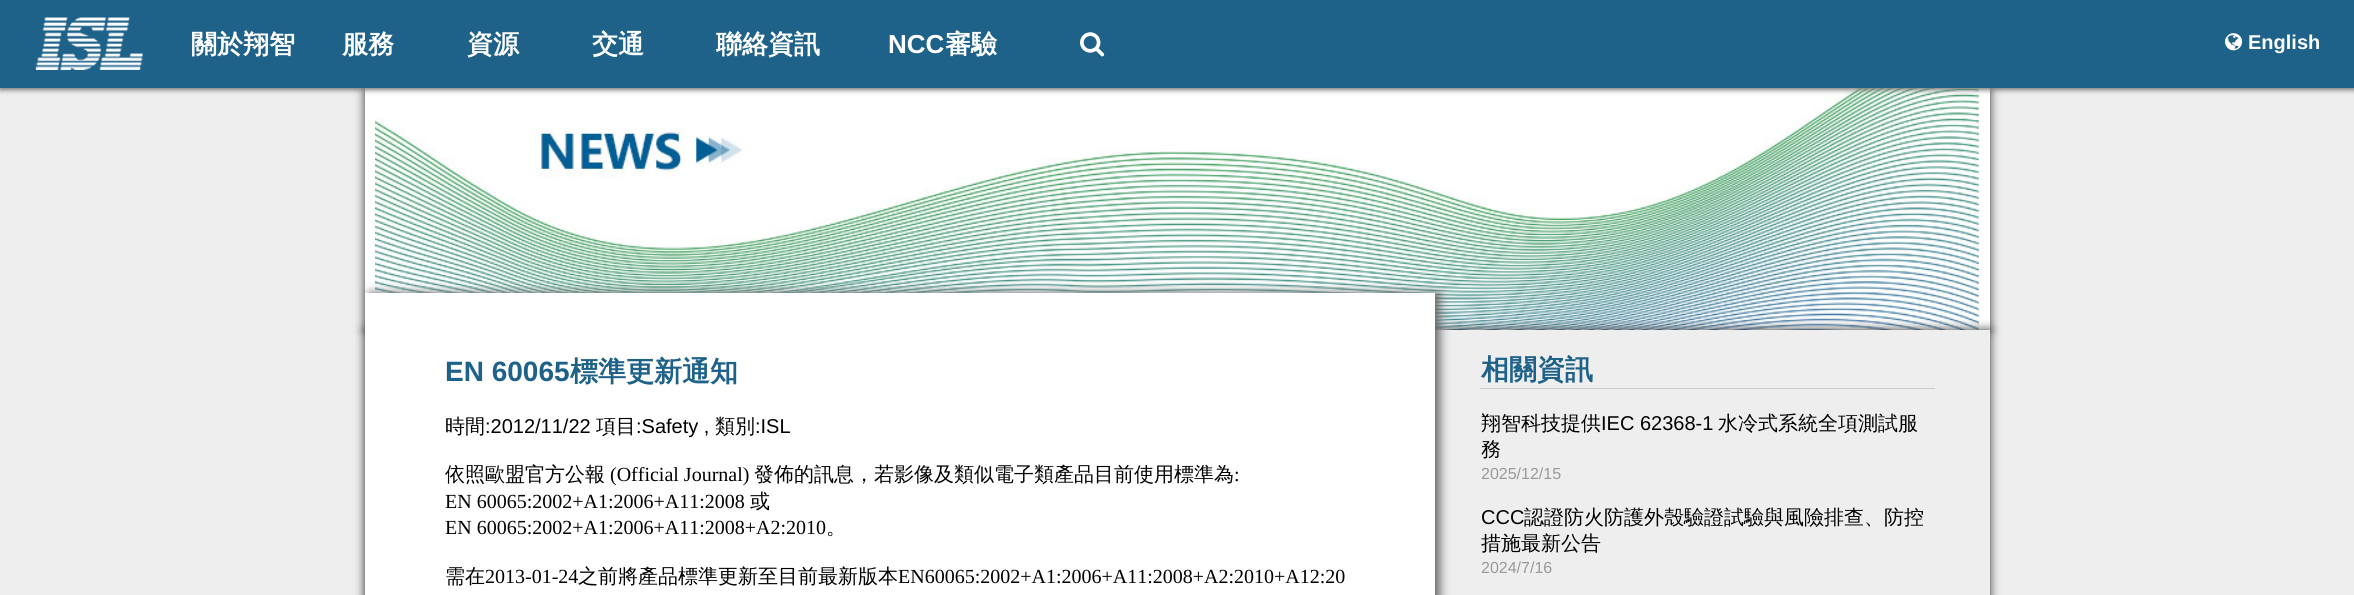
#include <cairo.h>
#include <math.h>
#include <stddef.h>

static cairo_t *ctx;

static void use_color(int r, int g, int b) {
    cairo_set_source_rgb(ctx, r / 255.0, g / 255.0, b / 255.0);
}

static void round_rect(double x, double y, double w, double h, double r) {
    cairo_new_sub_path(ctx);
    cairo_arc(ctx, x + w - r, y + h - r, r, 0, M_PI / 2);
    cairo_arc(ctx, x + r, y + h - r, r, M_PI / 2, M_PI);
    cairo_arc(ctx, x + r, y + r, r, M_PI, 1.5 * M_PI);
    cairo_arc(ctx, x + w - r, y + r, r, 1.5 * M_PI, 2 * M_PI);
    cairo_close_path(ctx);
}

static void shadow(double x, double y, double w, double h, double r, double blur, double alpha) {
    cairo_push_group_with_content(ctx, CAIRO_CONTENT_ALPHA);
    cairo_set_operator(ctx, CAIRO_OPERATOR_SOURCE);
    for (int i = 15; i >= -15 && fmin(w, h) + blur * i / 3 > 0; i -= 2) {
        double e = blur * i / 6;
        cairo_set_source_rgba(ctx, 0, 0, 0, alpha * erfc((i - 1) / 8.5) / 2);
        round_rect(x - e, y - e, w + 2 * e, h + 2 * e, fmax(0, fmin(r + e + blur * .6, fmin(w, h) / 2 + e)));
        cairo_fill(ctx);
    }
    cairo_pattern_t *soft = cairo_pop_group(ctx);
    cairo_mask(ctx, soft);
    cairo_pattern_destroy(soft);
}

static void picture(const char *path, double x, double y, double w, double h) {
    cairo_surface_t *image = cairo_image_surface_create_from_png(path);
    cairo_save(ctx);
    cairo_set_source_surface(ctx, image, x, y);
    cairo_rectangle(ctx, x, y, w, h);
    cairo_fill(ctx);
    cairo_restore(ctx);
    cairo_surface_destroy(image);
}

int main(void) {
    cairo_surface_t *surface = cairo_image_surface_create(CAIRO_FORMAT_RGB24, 2354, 595);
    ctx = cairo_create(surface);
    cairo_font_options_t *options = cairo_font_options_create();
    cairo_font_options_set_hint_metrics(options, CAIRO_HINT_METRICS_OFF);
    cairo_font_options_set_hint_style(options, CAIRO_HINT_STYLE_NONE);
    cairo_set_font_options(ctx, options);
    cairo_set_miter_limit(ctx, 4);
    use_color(238, 238, 238);
    cairo_paint(ctx);
    use_color(51, 51, 51);
    shadow(365, 88, 1625, 242, 0, 5, 1);
    use_color(255, 255, 255);
    cairo_rectangle(ctx, 365, 88, 1625, 242);
    cairo_fill(ctx);
    picture("img4.png", 375, 88, 1604, 242);
    use_color(119, 119, 119);
    shadow(0, 3, 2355, 87, 0, 2.5, 1);
    use_color(30, 97, 137);
    cairo_rectangle(ctx, 0, 0, 2354, 88);
    cairo_fill(ctx);
    picture("img1.png", 35, 17, 109, 53);
    cairo_select_font_face(ctx, "WenQuanYi Zen Hei", CAIRO_FONT_SLANT_NORMAL, CAIRO_FONT_WEIGHT_BOLD);
    cairo_set_font_size(ctx, 26);
    use_color(255, 255, 255);
    cairo_move_to(ctx, 191, 53);
    cairo_show_text(ctx, "關於翔智");
    cairo_move_to(ctx, 342, 53);
    cairo_show_text(ctx, "服務");
    cairo_move_to(ctx, 467, 53);
    cairo_show_text(ctx, "資源");
    cairo_move_to(ctx, 592, 53);
    cairo_show_text(ctx, "交通");
    cairo_move_to(ctx, 716, 53);
    cairo_show_text(ctx, "聯絡資訊");
    cairo_select_font_face(ctx, "Liberation Sans", CAIRO_FONT_SLANT_NORMAL, CAIRO_FONT_WEIGHT_BOLD);
    cairo_move_to(ctx, 888, 53);
    cairo_show_text(ctx, "NCC");
    cairo_select_font_face(ctx, "WenQuanYi Zen Hei", CAIRO_FONT_SLANT_NORMAL, CAIRO_FONT_WEIGHT_BOLD);
    cairo_move_to(ctx, 945, 53);
    cairo_show_text(ctx, "審驗");
    picture("img2.png", 1080, 32, 25, 25);
    picture("img3.png", 2225, 33, 18, 18);
    cairo_select_font_face(ctx, "Liberation Sans", CAIRO_FONT_SLANT_NORMAL, CAIRO_FONT_WEIGHT_BOLD);
    cairo_set_font_size(ctx, 20);
    cairo_move_to(ctx, 2248, 49);
    cairo_show_text(ctx, "English");
    use_color(51, 51, 51);
    shadow(365, 330, 1625, 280, 0, 5, 1);
    use_color(238, 238, 238);
    cairo_rectangle(ctx, 1435, 330, 555, 265);
    cairo_fill(ctx);
    use_color(102, 102, 102);
    shadow(370, 293, 1070, 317, 0, 5, 1);
    use_color(255, 255, 255);
    cairo_rectangle(ctx, 365, 293, 1070, 302);
    cairo_fill(ctx);
    cairo_set_font_size(ctx, 28);
    use_color(30, 97, 137);
    cairo_move_to(ctx, 445, 381);
    cairo_show_text(ctx, "EN 60065");
    cairo_select_font_face(ctx, "WenQuanYi Zen Hei", CAIRO_FONT_SLANT_NORMAL, CAIRO_FONT_WEIGHT_BOLD);
    cairo_move_to(ctx, 570, 381);
    cairo_show_text(ctx, "標準更新通知");
    cairo_select_font_face(ctx, "WenQuanYi Zen Hei Medium", CAIRO_FONT_SLANT_NORMAL, CAIRO_FONT_WEIGHT_NORMAL);
    cairo_set_font_size(ctx, 20);
    use_color(0, 0, 0);
    cairo_move_to(ctx, 445, 433);
    cairo_show_text(ctx, "時間");
    cairo_select_font_face(ctx, "Liberation Sans", CAIRO_FONT_SLANT_NORMAL, CAIRO_FONT_WEIGHT_NORMAL);
    cairo_move_to(ctx, 485, 433);
    cairo_show_text(ctx, ":2012/11/22");
    cairo_select_font_face(ctx, "WenQuanYi Zen Hei Medium", CAIRO_FONT_SLANT_NORMAL, CAIRO_FONT_WEIGHT_NORMAL);
    cairo_move_to(ctx, 596, 433);
    cairo_show_text(ctx, "項目");
    cairo_select_font_face(ctx, "Liberation Sans", CAIRO_FONT_SLANT_NORMAL, CAIRO_FONT_WEIGHT_NORMAL);
    cairo_move_to(ctx, 636, 433);
    cairo_show_text(ctx, ":Safety ,");
    cairo_select_font_face(ctx, "WenQuanYi Zen Hei Medium", CAIRO_FONT_SLANT_NORMAL, CAIRO_FONT_WEIGHT_NORMAL);
    cairo_move_to(ctx, 715, 433);
    cairo_show_text(ctx, "類別");
    cairo_select_font_face(ctx, "Liberation Sans", CAIRO_FONT_SLANT_NORMAL, CAIRO_FONT_WEIGHT_NORMAL);
    cairo_move_to(ctx, 755, 433);
    cairo_show_text(ctx, ":ISL");
    cairo_select_font_face(ctx, "WenQuanYi Zen Hei Medium", CAIRO_FONT_SLANT_NORMAL, CAIRO_FONT_WEIGHT_NORMAL);
    cairo_move_to(ctx, 445, 481);
    cairo_show_text(ctx, "依照歐盟官方公報");
    cairo_select_font_face(ctx, "Liberation Serif", CAIRO_FONT_SLANT_NORMAL, CAIRO_FONT_WEIGHT_NORMAL);
    cairo_move_to(ctx, 610, 481);
    cairo_show_text(ctx, "(Official Journal)");
    cairo_select_font_face(ctx, "WenQuanYi Zen Hei Medium", CAIRO_FONT_SLANT_NORMAL, CAIRO_FONT_WEIGHT_NORMAL);
    cairo_move_to(ctx, 754, 481);
    cairo_show_text(ctx, "發佈的訊息，若影像及類似電子類產品目前使用標準為");
    cairo_select_font_face(ctx, "Liberation Serif", CAIRO_FONT_SLANT_NORMAL, CAIRO_FONT_WEIGHT_NORMAL);
    cairo_move_to(ctx, 1234, 481);
    cairo_show_text(ctx, ":");
    cairo_move_to(ctx, 445, 508);
    cairo_show_text(ctx, "EN 60065:2002+A1:2006+A11:2008");
    cairo_select_font_face(ctx, "WenQuanYi Zen Hei Medium", CAIRO_FONT_SLANT_NORMAL, CAIRO_FONT_WEIGHT_NORMAL);
    cairo_move_to(ctx, 750, 508);
    cairo_show_text(ctx, "或");
    cairo_select_font_face(ctx, "Liberation Serif", CAIRO_FONT_SLANT_NORMAL, CAIRO_FONT_WEIGHT_NORMAL);
    cairo_move_to(ctx, 445, 534);
    cairo_show_text(ctx, "EN 60065:2002+A1:2006+A11:2008+A2:2010");
    cairo_select_font_face(ctx, "WenQuanYi Zen Hei Medium", CAIRO_FONT_SLANT_NORMAL, CAIRO_FONT_WEIGHT_NORMAL);
    cairo_move_to(ctx, 826, 534);
    cairo_show_text(ctx, "。");
    cairo_move_to(ctx, 445, 583);
    cairo_show_text(ctx, "需在");
    cairo_select_font_face(ctx, "Liberation Serif", CAIRO_FONT_SLANT_NORMAL, CAIRO_FONT_WEIGHT_NORMAL);
    cairo_move_to(ctx, 485, 583);
    cairo_show_text(ctx, "2013-01-24");
    cairo_select_font_face(ctx, "WenQuanYi Zen Hei Medium", CAIRO_FONT_SLANT_NORMAL, CAIRO_FONT_WEIGHT_NORMAL);
    cairo_move_to(ctx, 578, 583);
    cairo_show_text(ctx, "之前將產品標準更新至目前最新版本");
    cairo_select_font_face(ctx, "Liberation Serif", CAIRO_FONT_SLANT_NORMAL, CAIRO_FONT_WEIGHT_NORMAL);
    cairo_move_to(ctx, 898, 583);
    cairo_show_text(ctx, "EN60065:2002+A1:2006+A11:2008+A2:2010+A12:20");
    use_color(204, 204, 204);
    cairo_rectangle(ctx, 1480, 388, 455, 1);
    cairo_fill(ctx);
    cairo_select_font_face(ctx, "WenQuanYi Zen Hei", CAIRO_FONT_SLANT_NORMAL, CAIRO_FONT_WEIGHT_BOLD);
    cairo_set_font_size(ctx, 28);
    use_color(30, 97, 137);
    cairo_move_to(ctx, 1481, 379);
    cairo_show_text(ctx, "相關資訊");
    cairo_select_font_face(ctx, "WenQuanYi Zen Hei Medium", CAIRO_FONT_SLANT_NORMAL, CAIRO_FONT_WEIGHT_NORMAL);
    cairo_set_font_size(ctx, 20);
    use_color(0, 0, 0);
    cairo_move_to(ctx, 1481, 430);
    cairo_show_text(ctx, "翔智科技提供");
    cairo_select_font_face(ctx, "Liberation Sans", CAIRO_FONT_SLANT_NORMAL, CAIRO_FONT_WEIGHT_NORMAL);
    cairo_move_to(ctx, 1601, 430);
    cairo_show_text(ctx, "IEC 62368-1");
    cairo_select_font_face(ctx, "WenQuanYi Zen Hei Medium", CAIRO_FONT_SLANT_NORMAL, CAIRO_FONT_WEIGHT_NORMAL);
    cairo_move_to(ctx, 1718, 430);
    cairo_show_text(ctx, "水冷式系統全項測試服");
    cairo_move_to(ctx, 1481, 456);
    cairo_show_text(ctx, "務");
    cairo_select_font_face(ctx, "Liberation Sans", CAIRO_FONT_SLANT_NORMAL, CAIRO_FONT_WEIGHT_NORMAL);
    cairo_set_font_size(ctx, 16);
    use_color(153, 153, 153);
    cairo_move_to(ctx, 1481, 479);
    cairo_show_text(ctx, "2025/12/15");
    cairo_set_font_size(ctx, 20);
    use_color(0, 0, 0);
    cairo_move_to(ctx, 1481, 524);
    cairo_show_text(ctx, "CCC");
    cairo_select_font_face(ctx, "WenQuanYi Zen Hei Medium", CAIRO_FONT_SLANT_NORMAL, CAIRO_FONT_WEIGHT_NORMAL);
    cairo_move_to(ctx, 1524, 524);
    cairo_show_text(ctx, "認證防火防護外殼驗證試驗與風險排查、防控");
    cairo_move_to(ctx, 1481, 550);
    cairo_show_text(ctx, "措施最新公告");
    cairo_select_font_face(ctx, "Liberation Sans", CAIRO_FONT_SLANT_NORMAL, CAIRO_FONT_WEIGHT_NORMAL);
    cairo_set_font_size(ctx, 16);
    use_color(153, 153, 153);
    cairo_move_to(ctx, 1481, 573);
    cairo_show_text(ctx, "2024/7/16");
    cairo_surface_write_to_png(surface, "result.png");
    cairo_font_options_destroy(options);
    cairo_destroy(ctx);
    cairo_surface_destroy(surface);
    return 0;
}
